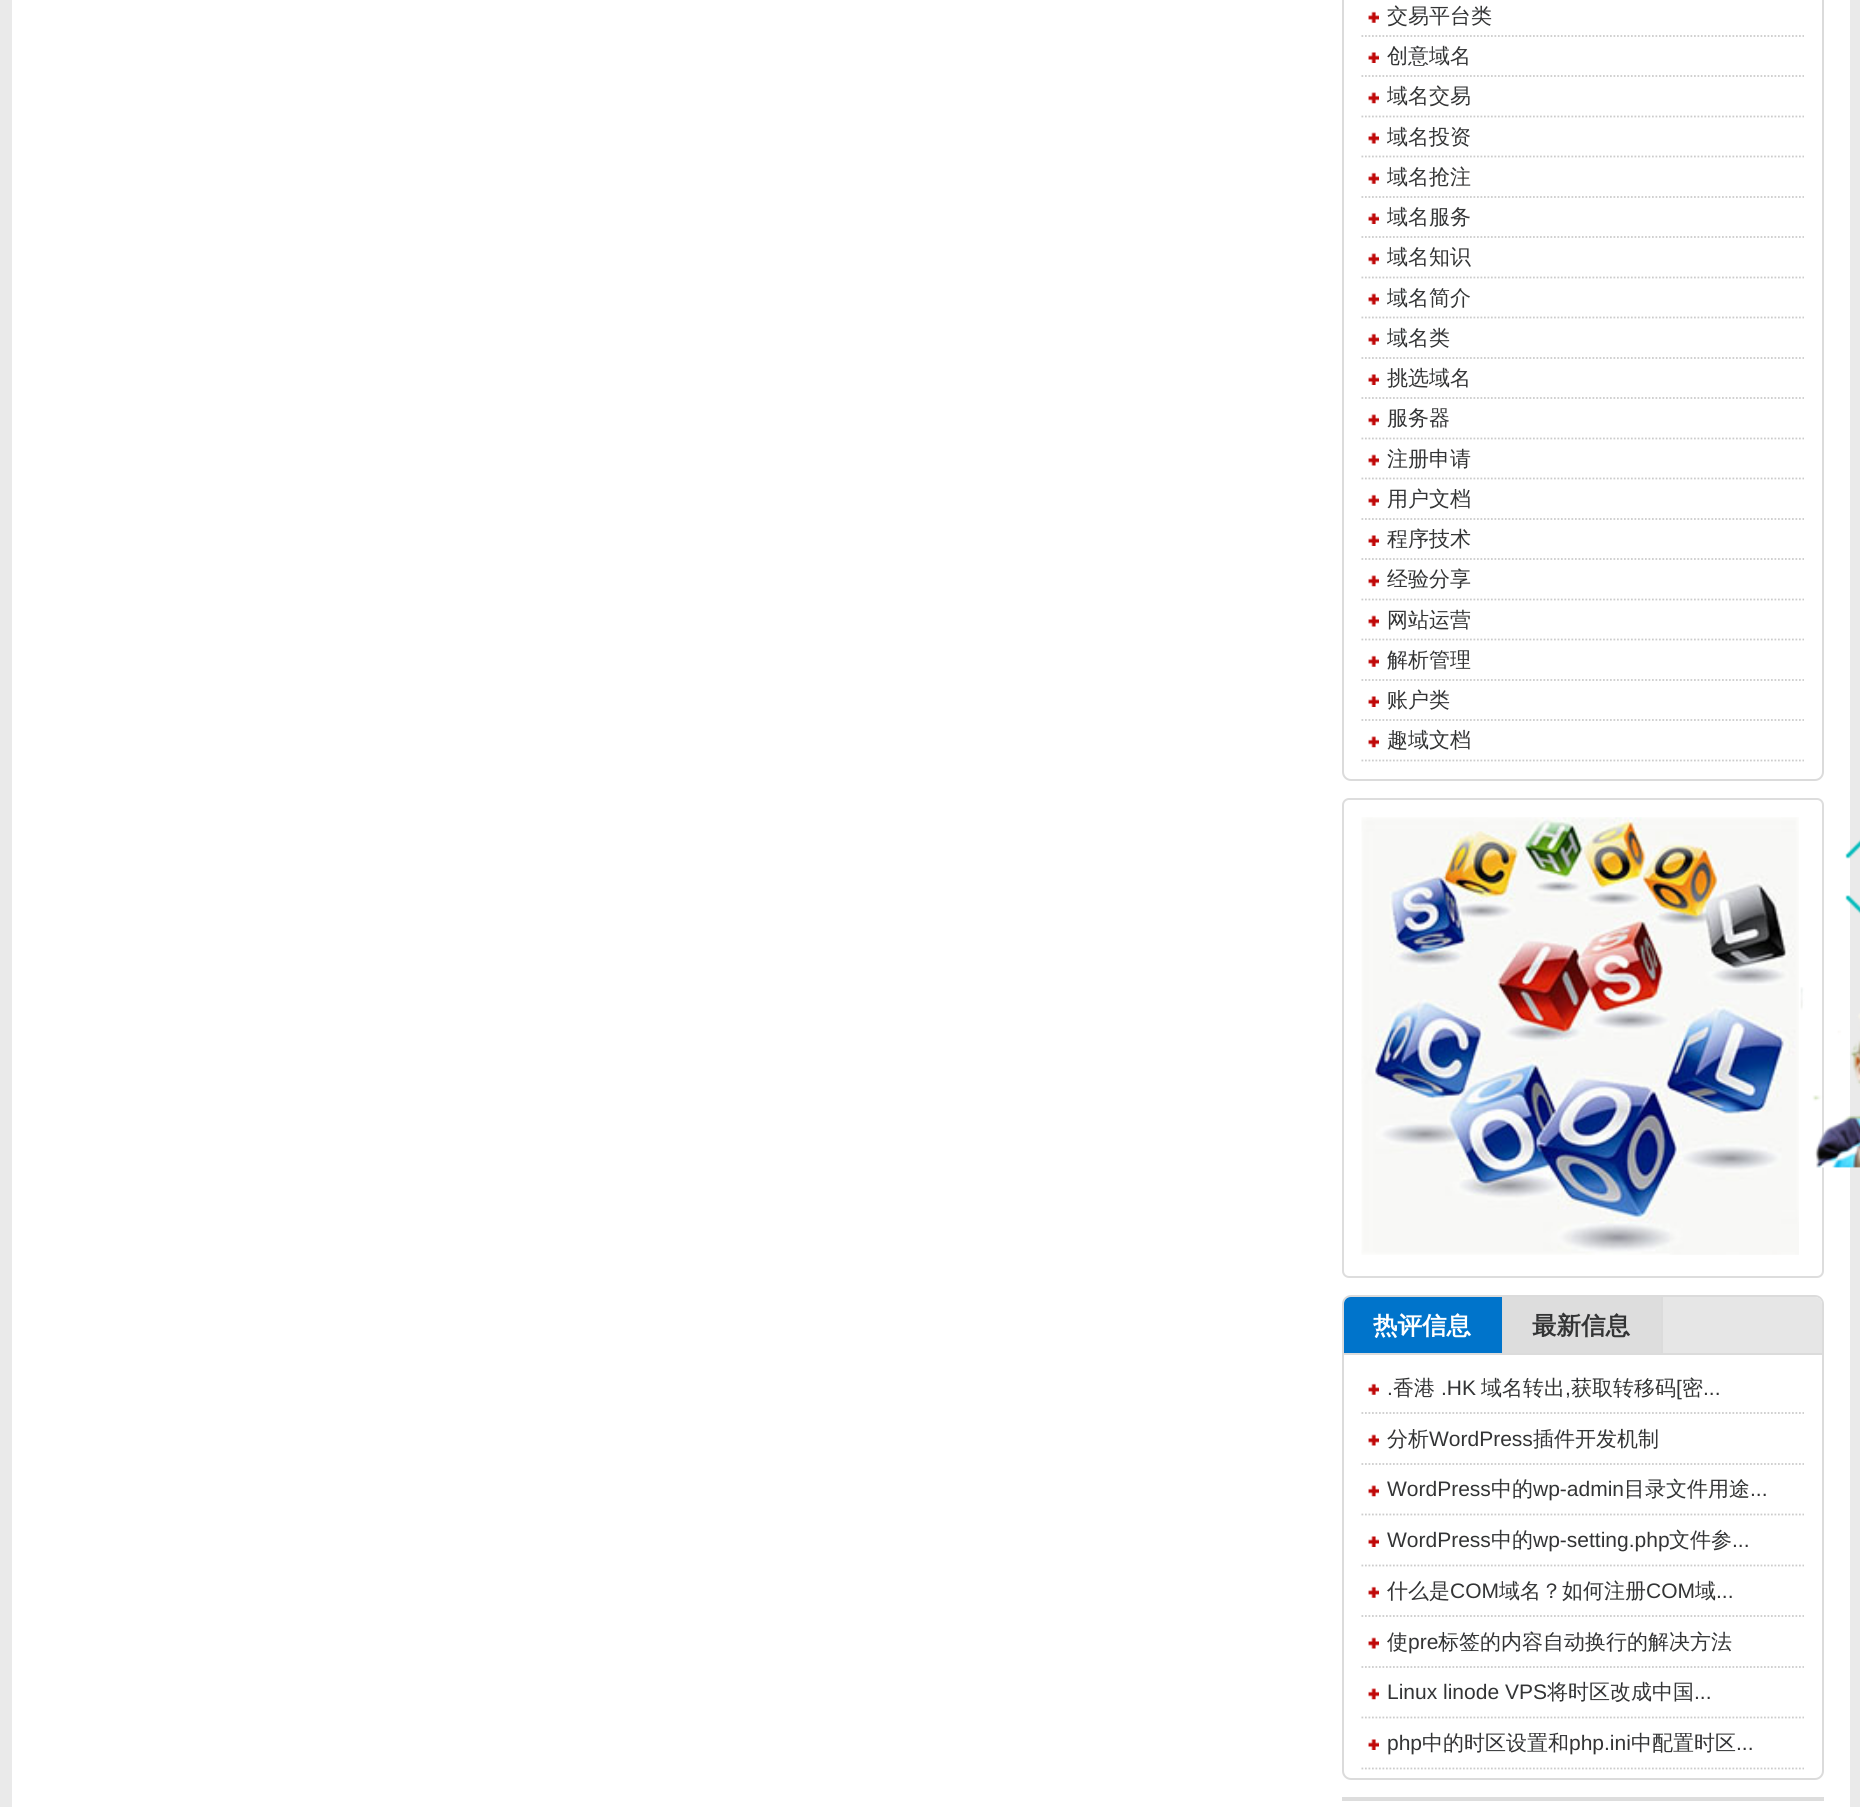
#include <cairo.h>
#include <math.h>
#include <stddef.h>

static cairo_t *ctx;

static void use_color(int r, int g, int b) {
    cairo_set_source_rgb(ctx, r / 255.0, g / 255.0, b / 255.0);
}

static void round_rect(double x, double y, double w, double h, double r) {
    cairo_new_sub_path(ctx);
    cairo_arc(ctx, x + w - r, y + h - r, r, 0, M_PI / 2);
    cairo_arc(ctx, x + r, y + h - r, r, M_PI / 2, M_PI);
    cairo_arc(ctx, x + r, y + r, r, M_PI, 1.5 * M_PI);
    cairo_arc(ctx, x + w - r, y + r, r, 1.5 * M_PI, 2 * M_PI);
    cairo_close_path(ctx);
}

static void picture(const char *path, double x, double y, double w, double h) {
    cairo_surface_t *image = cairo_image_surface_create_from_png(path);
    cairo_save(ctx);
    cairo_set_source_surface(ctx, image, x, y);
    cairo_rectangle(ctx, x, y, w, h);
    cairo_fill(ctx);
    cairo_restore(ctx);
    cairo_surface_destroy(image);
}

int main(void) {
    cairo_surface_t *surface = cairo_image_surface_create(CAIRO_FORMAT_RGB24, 1860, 1807);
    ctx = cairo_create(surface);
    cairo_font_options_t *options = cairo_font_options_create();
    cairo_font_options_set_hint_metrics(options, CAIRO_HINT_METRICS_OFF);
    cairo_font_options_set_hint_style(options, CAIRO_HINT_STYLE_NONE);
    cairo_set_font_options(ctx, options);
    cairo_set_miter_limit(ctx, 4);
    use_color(234, 234, 234);
    cairo_paint(ctx);
    use_color(255, 255, 255);
    cairo_rectangle(ctx, 12, 0, 1838, 1807);
    cairo_fill(ctx);
    round_rect(1343, -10, 480, 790, 8);
    use_color(219, 219, 219);
    cairo_stroke(ctx);
    picture("img1.png", 1368, 11, 11, 12);
    cairo_new_path(ctx);
    cairo_move_to(ctx, 1361.5, 36);
    cairo_line_to(ctx, 1804, 36);
    use_color(204, 204, 204);
    cairo_set_line_width(ctx, 1.8);
    cairo_set_dash(ctx, (double[]){1.75, 1.75}, 2, 0);
    cairo_stroke(ctx);
    cairo_select_font_face(ctx, "WenQuanYi Zen Hei Medium", CAIRO_FONT_SLANT_NORMAL, CAIRO_FONT_WEIGHT_NORMAL);
    cairo_set_font_size(ctx, 21);
    use_color(51, 52, 53);
    cairo_move_to(ctx, 1387, 23);
    cairo_show_text(ctx, "交易平台类");
    picture("img2.png", 1368, 52, 11, 11);
    cairo_new_path(ctx);
    cairo_move_to(ctx, 1361.5, 76);
    cairo_line_to(ctx, 1804, 76);
    use_color(204, 204, 204);
    cairo_stroke(ctx);
    use_color(51, 52, 53);
    cairo_move_to(ctx, 1387, 63);
    cairo_show_text(ctx, "创意域名");
    picture("img3.png", 1368, 92, 11, 12);
    cairo_new_path(ctx);
    cairo_move_to(ctx, 1361.5, 116.5);
    cairo_line_to(ctx, 1804, 116.5);
    use_color(204, 204, 204);
    cairo_stroke(ctx);
    use_color(51, 52, 53);
    cairo_move_to(ctx, 1387, 103);
    cairo_show_text(ctx, "域名交易");
    picture("img4.png", 1368, 132, 11, 12);
    cairo_new_path(ctx);
    cairo_move_to(ctx, 1361.5, 156.5);
    cairo_line_to(ctx, 1804, 156.5);
    use_color(204, 204, 204);
    cairo_stroke(ctx);
    use_color(51, 52, 53);
    cairo_move_to(ctx, 1387, 144);
    cairo_show_text(ctx, "域名投资");
    picture("img1.png", 1368, 172, 11, 12);
    cairo_new_path(ctx);
    cairo_move_to(ctx, 1361.5, 197);
    cairo_line_to(ctx, 1804, 197);
    use_color(204, 204, 204);
    cairo_stroke(ctx);
    use_color(51, 52, 53);
    cairo_move_to(ctx, 1387, 184);
    cairo_show_text(ctx, "域名抢注");
    picture("img2.png", 1368, 213, 11, 11);
    cairo_new_path(ctx);
    cairo_move_to(ctx, 1361.5, 237);
    cairo_line_to(ctx, 1804, 237);
    use_color(204, 204, 204);
    cairo_stroke(ctx);
    use_color(51, 52, 53);
    cairo_move_to(ctx, 1387, 224);
    cairo_show_text(ctx, "域名服务");
    picture("img3.png", 1368, 253, 11, 12);
    cairo_new_path(ctx);
    cairo_move_to(ctx, 1361.5, 277.5);
    cairo_line_to(ctx, 1804, 277.5);
    use_color(204, 204, 204);
    cairo_stroke(ctx);
    use_color(51, 52, 53);
    cairo_move_to(ctx, 1387, 264);
    cairo_show_text(ctx, "域名知识");
    picture("img4.png", 1368, 293, 11, 12);
    cairo_new_path(ctx);
    cairo_move_to(ctx, 1361.5, 317.5);
    cairo_line_to(ctx, 1804, 317.5);
    use_color(204, 204, 204);
    cairo_stroke(ctx);
    use_color(51, 52, 53);
    cairo_move_to(ctx, 1387, 305);
    cairo_show_text(ctx, "域名简介");
    picture("img1.png", 1368, 333, 11, 12);
    cairo_new_path(ctx);
    cairo_move_to(ctx, 1361.5, 358);
    cairo_line_to(ctx, 1804, 358);
    use_color(204, 204, 204);
    cairo_stroke(ctx);
    use_color(51, 52, 53);
    cairo_move_to(ctx, 1387, 345);
    cairo_show_text(ctx, "域名类");
    picture("img2.png", 1368, 374, 11, 11);
    cairo_new_path(ctx);
    cairo_move_to(ctx, 1361.5, 398);
    cairo_line_to(ctx, 1804, 398);
    use_color(204, 204, 204);
    cairo_stroke(ctx);
    use_color(51, 52, 53);
    cairo_move_to(ctx, 1387, 385);
    cairo_show_text(ctx, "挑选域名");
    picture("img3.png", 1368, 414, 11, 12);
    cairo_new_path(ctx);
    cairo_move_to(ctx, 1361.5, 438.5);
    cairo_line_to(ctx, 1804, 438.5);
    use_color(204, 204, 204);
    cairo_stroke(ctx);
    use_color(51, 52, 53);
    cairo_move_to(ctx, 1387, 425);
    cairo_show_text(ctx, "服务器");
    picture("img4.png", 1368, 454, 11, 12);
    cairo_new_path(ctx);
    cairo_move_to(ctx, 1361.5, 478.5);
    cairo_line_to(ctx, 1804, 478.5);
    use_color(204, 204, 204);
    cairo_stroke(ctx);
    use_color(51, 52, 53);
    cairo_move_to(ctx, 1387, 466);
    cairo_show_text(ctx, "注册申请");
    picture("img1.png", 1368, 494, 11, 12);
    cairo_new_path(ctx);
    cairo_move_to(ctx, 1361.5, 519);
    cairo_line_to(ctx, 1804, 519);
    use_color(204, 204, 204);
    cairo_stroke(ctx);
    use_color(51, 52, 53);
    cairo_move_to(ctx, 1387, 506);
    cairo_show_text(ctx, "用户文档");
    picture("img2.png", 1368, 535, 11, 11);
    cairo_new_path(ctx);
    cairo_move_to(ctx, 1361.5, 559);
    cairo_line_to(ctx, 1804, 559);
    use_color(204, 204, 204);
    cairo_stroke(ctx);
    use_color(51, 52, 53);
    cairo_move_to(ctx, 1387, 546);
    cairo_show_text(ctx, "程序技术");
    picture("img3.png", 1368, 575, 11, 12);
    cairo_new_path(ctx);
    cairo_move_to(ctx, 1361.5, 599.5);
    cairo_line_to(ctx, 1804, 599.5);
    use_color(204, 204, 204);
    cairo_stroke(ctx);
    use_color(51, 52, 53);
    cairo_move_to(ctx, 1387, 586);
    cairo_show_text(ctx, "经验分享");
    picture("img4.png", 1368, 615, 11, 12);
    cairo_new_path(ctx);
    cairo_move_to(ctx, 1361.5, 639.5);
    cairo_line_to(ctx, 1804, 639.5);
    use_color(204, 204, 204);
    cairo_stroke(ctx);
    use_color(51, 52, 53);
    cairo_move_to(ctx, 1387, 627);
    cairo_show_text(ctx, "网站运营");
    picture("img1.png", 1368, 655, 11, 12);
    cairo_new_path(ctx);
    cairo_move_to(ctx, 1361.5, 680);
    cairo_line_to(ctx, 1804, 680);
    use_color(204, 204, 204);
    cairo_stroke(ctx);
    use_color(51, 52, 53);
    cairo_move_to(ctx, 1387, 667);
    cairo_show_text(ctx, "解析管理");
    picture("img2.png", 1368, 696, 11, 11);
    cairo_new_path(ctx);
    cairo_move_to(ctx, 1361.5, 720);
    cairo_line_to(ctx, 1804, 720);
    use_color(204, 204, 204);
    cairo_stroke(ctx);
    use_color(51, 52, 53);
    cairo_move_to(ctx, 1387, 707);
    cairo_show_text(ctx, "账户类");
    picture("img3.png", 1368, 736, 11, 12);
    cairo_new_path(ctx);
    cairo_move_to(ctx, 1361.5, 760.5);
    cairo_line_to(ctx, 1804, 760.5);
    use_color(204, 204, 204);
    cairo_stroke(ctx);
    use_color(51, 52, 53);
    cairo_move_to(ctx, 1387, 747);
    cairo_show_text(ctx, "趣域文档");
    round_rect(1343, 799, 480, 478, 6);
    use_color(221, 221, 221);
    cairo_set_line_width(ctx, 2);
    cairo_set_dash(ctx, NULL, 0, 0);
    cairo_stroke(ctx);
    picture("img5.png", 1361, 817, 438, 438);
    round_rect(1343, 1296, 480, 483, 8);
    use_color(219, 219, 219);
    cairo_stroke(ctx);
    use_color(230, 230, 230);
    cairo_new_path(ctx);
    cairo_move_to(ctx, 1351, 1297);
    cairo_line_to(ctx, 1815, 1297);
    cairo_curve_to(ctx, 1819, 1297, 1822, 1300, 1822, 1304);
    cairo_line_to(ctx, 1822, 1355);
    cairo_line_to(ctx, 1344, 1355);
    cairo_line_to(ctx, 1344, 1304);
    cairo_curve_to(ctx, 1344, 1300, 1347, 1297, 1351, 1297);
    cairo_close_path(ctx);
    cairo_fill(ctx);
    use_color(219, 219, 219);
    cairo_rectangle(ctx, 1344, 1353, 478, 2);
    cairo_fill(ctx);
    cairo_rectangle(ctx, 1502, 1297, 1, 56);
    cairo_fill(ctx);
    use_color(0, 116, 203);
    cairo_new_path(ctx);
    cairo_move_to(ctx, 1351, 1297);
    cairo_line_to(ctx, 1502, 1297);
    cairo_line_to(ctx, 1502, 1353);
    cairo_line_to(ctx, 1344, 1353);
    cairo_line_to(ctx, 1344, 1304);
    cairo_curve_to(ctx, 1344, 1300, 1347, 1297, 1351, 1297);
    cairo_close_path(ctx);
    cairo_fill(ctx);
    cairo_select_font_face(ctx, "WenQuanYi Zen Hei", CAIRO_FONT_SLANT_NORMAL, CAIRO_FONT_WEIGHT_BOLD);
    cairo_set_font_size(ctx, 24.5);
    use_color(255, 255, 255);
    cairo_move_to(ctx, 1373, 1334);
    cairo_show_text(ctx, "热评信息");
    use_color(219, 219, 219);
    cairo_rectangle(ctx, 1661, 1297, 2, 56);
    cairo_fill(ctx);
    use_color(221, 221, 221);
    cairo_rectangle(ctx, 1503, 1297, 158, 56);
    cairo_fill(ctx);
    use_color(51, 52, 53);
    cairo_move_to(ctx, 1532, 1334);
    cairo_show_text(ctx, "最新信息");
    cairo_new_path(ctx);
    cairo_move_to(ctx, 1361.5, 1413);
    cairo_line_to(ctx, 1804, 1413);
    use_color(204, 204, 204);
    cairo_set_line_width(ctx, 1.8);
    cairo_set_dash(ctx, (double[]){1.75, 1.75}, 2, 0);
    cairo_stroke(ctx);
    picture("img1.png", 1368, 1383, 11, 12);
    cairo_select_font_face(ctx, "Liberation Sans", CAIRO_FONT_SLANT_NORMAL, CAIRO_FONT_WEIGHT_NORMAL);
    cairo_set_font_size(ctx, 21);
    use_color(51, 52, 53);
    cairo_move_to(ctx, 1387, 1395);
    cairo_show_text(ctx, ".");
    cairo_select_font_face(ctx, "WenQuanYi Zen Hei Medium", CAIRO_FONT_SLANT_NORMAL, CAIRO_FONT_WEIGHT_NORMAL);
    cairo_move_to(ctx, 1393, 1395);
    cairo_show_text(ctx, "香港");
    cairo_select_font_face(ctx, "Liberation Sans", CAIRO_FONT_SLANT_NORMAL, CAIRO_FONT_WEIGHT_NORMAL);
    cairo_move_to(ctx, 1441, 1395);
    cairo_show_text(ctx, ".HK");
    cairo_select_font_face(ctx, "WenQuanYi Zen Hei Medium", CAIRO_FONT_SLANT_NORMAL, CAIRO_FONT_WEIGHT_NORMAL);
    cairo_move_to(ctx, 1481, 1395);
    cairo_show_text(ctx, "域名转出");
    cairo_select_font_face(ctx, "Liberation Sans", CAIRO_FONT_SLANT_NORMAL, CAIRO_FONT_WEIGHT_NORMAL);
    cairo_move_to(ctx, 1565, 1395);
    cairo_show_text(ctx, ",");
    cairo_select_font_face(ctx, "WenQuanYi Zen Hei Medium", CAIRO_FONT_SLANT_NORMAL, CAIRO_FONT_WEIGHT_NORMAL);
    cairo_move_to(ctx, 1571, 1395);
    cairo_show_text(ctx, "获取转移码");
    cairo_select_font_face(ctx, "Liberation Sans", CAIRO_FONT_SLANT_NORMAL, CAIRO_FONT_WEIGHT_NORMAL);
    cairo_move_to(ctx, 1676, 1395);
    cairo_show_text(ctx, "[");
    cairo_select_font_face(ctx, "WenQuanYi Zen Hei Medium", CAIRO_FONT_SLANT_NORMAL, CAIRO_FONT_WEIGHT_NORMAL);
    cairo_move_to(ctx, 1682, 1395);
    cairo_show_text(ctx, "密");
    cairo_select_font_face(ctx, "Liberation Sans", CAIRO_FONT_SLANT_NORMAL, CAIRO_FONT_WEIGHT_NORMAL);
    cairo_move_to(ctx, 1703, 1395);
    cairo_show_text(ctx, "...");
    cairo_new_path(ctx);
    cairo_move_to(ctx, 1361.5, 1464);
    cairo_line_to(ctx, 1804, 1464);
    use_color(204, 204, 204);
    cairo_stroke(ctx);
    picture("img4.png", 1368, 1434, 11, 12);
    cairo_select_font_face(ctx, "WenQuanYi Zen Hei Medium", CAIRO_FONT_SLANT_NORMAL, CAIRO_FONT_WEIGHT_NORMAL);
    use_color(51, 52, 53);
    cairo_move_to(ctx, 1387, 1446);
    cairo_show_text(ctx, "分析");
    cairo_select_font_face(ctx, "Liberation Sans", CAIRO_FONT_SLANT_NORMAL, CAIRO_FONT_WEIGHT_NORMAL);
    cairo_move_to(ctx, 1429, 1446);
    cairo_show_text(ctx, "WordPress");
    cairo_select_font_face(ctx, "WenQuanYi Zen Hei Medium", CAIRO_FONT_SLANT_NORMAL, CAIRO_FONT_WEIGHT_NORMAL);
    cairo_move_to(ctx, 1533, 1446);
    cairo_show_text(ctx, "插件开发机制");
    cairo_new_path(ctx);
    cairo_move_to(ctx, 1361.5, 1514.5);
    cairo_line_to(ctx, 1804, 1514.5);
    use_color(204, 204, 204);
    cairo_stroke(ctx);
    picture("img3.png", 1368, 1485, 11, 12);
    cairo_select_font_face(ctx, "Liberation Sans", CAIRO_FONT_SLANT_NORMAL, CAIRO_FONT_WEIGHT_NORMAL);
    use_color(51, 52, 53);
    cairo_move_to(ctx, 1387, 1496);
    cairo_show_text(ctx, "WordPress");
    cairo_select_font_face(ctx, "WenQuanYi Zen Hei Medium", CAIRO_FONT_SLANT_NORMAL, CAIRO_FONT_WEIGHT_NORMAL);
    cairo_move_to(ctx, 1491, 1496);
    cairo_show_text(ctx, "中的");
    cairo_select_font_face(ctx, "Liberation Sans", CAIRO_FONT_SLANT_NORMAL, CAIRO_FONT_WEIGHT_NORMAL);
    cairo_move_to(ctx, 1533, 1496);
    cairo_show_text(ctx, "wp-admin");
    cairo_select_font_face(ctx, "WenQuanYi Zen Hei Medium", CAIRO_FONT_SLANT_NORMAL, CAIRO_FONT_WEIGHT_NORMAL);
    cairo_move_to(ctx, 1624, 1496);
    cairo_show_text(ctx, "目录文件用途");
    cairo_select_font_face(ctx, "Liberation Sans", CAIRO_FONT_SLANT_NORMAL, CAIRO_FONT_WEIGHT_NORMAL);
    cairo_move_to(ctx, 1750, 1496);
    cairo_show_text(ctx, "...");
    cairo_new_path(ctx);
    cairo_move_to(ctx, 1361.5, 1565.5);
    cairo_line_to(ctx, 1804, 1565.5);
    use_color(204, 204, 204);
    cairo_stroke(ctx);
    picture("img2.png", 1368, 1536, 11, 11);
    use_color(51, 52, 53);
    cairo_move_to(ctx, 1387, 1547);
    cairo_show_text(ctx, "WordPress");
    cairo_select_font_face(ctx, "WenQuanYi Zen Hei Medium", CAIRO_FONT_SLANT_NORMAL, CAIRO_FONT_WEIGHT_NORMAL);
    cairo_move_to(ctx, 1491, 1547);
    cairo_show_text(ctx, "中的");
    cairo_select_font_face(ctx, "Liberation Sans", CAIRO_FONT_SLANT_NORMAL, CAIRO_FONT_WEIGHT_NORMAL);
    cairo_move_to(ctx, 1533, 1547);
    cairo_show_text(ctx, "wp-setting.php");
    cairo_select_font_face(ctx, "WenQuanYi Zen Hei Medium", CAIRO_FONT_SLANT_NORMAL, CAIRO_FONT_WEIGHT_NORMAL);
    cairo_move_to(ctx, 1669, 1547);
    cairo_show_text(ctx, "文件参");
    cairo_select_font_face(ctx, "Liberation Sans", CAIRO_FONT_SLANT_NORMAL, CAIRO_FONT_WEIGHT_NORMAL);
    cairo_move_to(ctx, 1732, 1547);
    cairo_show_text(ctx, "...");
    cairo_new_path(ctx);
    cairo_move_to(ctx, 1361.5, 1616);
    cairo_line_to(ctx, 1804, 1616);
    use_color(204, 204, 204);
    cairo_stroke(ctx);
    picture("img1.png", 1368, 1586, 11, 12);
    cairo_select_font_face(ctx, "WenQuanYi Zen Hei Medium", CAIRO_FONT_SLANT_NORMAL, CAIRO_FONT_WEIGHT_NORMAL);
    use_color(51, 52, 53);
    cairo_move_to(ctx, 1387, 1598);
    cairo_show_text(ctx, "什么是");
    cairo_select_font_face(ctx, "Liberation Sans", CAIRO_FONT_SLANT_NORMAL, CAIRO_FONT_WEIGHT_NORMAL);
    cairo_move_to(ctx, 1450, 1598);
    cairo_show_text(ctx, "COM");
    cairo_select_font_face(ctx, "WenQuanYi Zen Hei Medium", CAIRO_FONT_SLANT_NORMAL, CAIRO_FONT_WEIGHT_NORMAL);
    cairo_move_to(ctx, 1499, 1598);
    cairo_show_text(ctx, "域名？如何注册");
    cairo_select_font_face(ctx, "Liberation Sans", CAIRO_FONT_SLANT_NORMAL, CAIRO_FONT_WEIGHT_NORMAL);
    cairo_move_to(ctx, 1646, 1598);
    cairo_show_text(ctx, "COM");
    cairo_select_font_face(ctx, "WenQuanYi Zen Hei Medium", CAIRO_FONT_SLANT_NORMAL, CAIRO_FONT_WEIGHT_NORMAL);
    cairo_move_to(ctx, 1695, 1598);
    cairo_show_text(ctx, "域");
    cairo_select_font_face(ctx, "Liberation Sans", CAIRO_FONT_SLANT_NORMAL, CAIRO_FONT_WEIGHT_NORMAL);
    cairo_move_to(ctx, 1716, 1598);
    cairo_show_text(ctx, "...");
    cairo_new_path(ctx);
    cairo_move_to(ctx, 1361.5, 1667);
    cairo_line_to(ctx, 1804, 1667);
    use_color(204, 204, 204);
    cairo_stroke(ctx);
    picture("img4.png", 1368, 1637, 11, 12);
    cairo_select_font_face(ctx, "WenQuanYi Zen Hei Medium", CAIRO_FONT_SLANT_NORMAL, CAIRO_FONT_WEIGHT_NORMAL);
    use_color(51, 52, 53);
    cairo_move_to(ctx, 1387, 1649);
    cairo_show_text(ctx, "使");
    cairo_select_font_face(ctx, "Liberation Sans", CAIRO_FONT_SLANT_NORMAL, CAIRO_FONT_WEIGHT_NORMAL);
    cairo_move_to(ctx, 1408, 1649);
    cairo_show_text(ctx, "pre");
    cairo_select_font_face(ctx, "WenQuanYi Zen Hei Medium", CAIRO_FONT_SLANT_NORMAL, CAIRO_FONT_WEIGHT_NORMAL);
    cairo_move_to(ctx, 1438, 1649);
    cairo_show_text(ctx, "标签的内容自动换行的解决方法");
    cairo_new_path(ctx);
    cairo_move_to(ctx, 1361.5, 1717.5);
    cairo_line_to(ctx, 1804, 1717.5);
    use_color(204, 204, 204);
    cairo_stroke(ctx);
    picture("img3.png", 1368, 1688, 11, 12);
    cairo_select_font_face(ctx, "Liberation Sans", CAIRO_FONT_SLANT_NORMAL, CAIRO_FONT_WEIGHT_NORMAL);
    use_color(51, 52, 53);
    cairo_move_to(ctx, 1387, 1699);
    cairo_show_text(ctx, "Linux linode VPS");
    cairo_select_font_face(ctx, "WenQuanYi Zen Hei Medium", CAIRO_FONT_SLANT_NORMAL, CAIRO_FONT_WEIGHT_NORMAL);
    cairo_move_to(ctx, 1547, 1699);
    cairo_show_text(ctx, "将时区改成中国");
    cairo_select_font_face(ctx, "Liberation Sans", CAIRO_FONT_SLANT_NORMAL, CAIRO_FONT_WEIGHT_NORMAL);
    cairo_move_to(ctx, 1694, 1699);
    cairo_show_text(ctx, "...");
    cairo_new_path(ctx);
    cairo_move_to(ctx, 1361.5, 1768.5);
    cairo_line_to(ctx, 1804, 1768.5);
    use_color(204, 204, 204);
    cairo_stroke(ctx);
    picture("img2.png", 1368, 1739, 11, 11);
    use_color(51, 52, 53);
    cairo_move_to(ctx, 1387, 1750);
    cairo_show_text(ctx, "php");
    cairo_select_font_face(ctx, "WenQuanYi Zen Hei Medium", CAIRO_FONT_SLANT_NORMAL, CAIRO_FONT_WEIGHT_NORMAL);
    cairo_move_to(ctx, 1422, 1750);
    cairo_show_text(ctx, "中的时区设置和");
    cairo_select_font_face(ctx, "Liberation Sans", CAIRO_FONT_SLANT_NORMAL, CAIRO_FONT_WEIGHT_NORMAL);
    cairo_move_to(ctx, 1569, 1750);
    cairo_show_text(ctx, "php.ini");
    cairo_select_font_face(ctx, "WenQuanYi Zen Hei Medium", CAIRO_FONT_SLANT_NORMAL, CAIRO_FONT_WEIGHT_NORMAL);
    cairo_move_to(ctx, 1631, 1750);
    cairo_show_text(ctx, "中配置时区");
    cairo_select_font_face(ctx, "Liberation Sans", CAIRO_FONT_SLANT_NORMAL, CAIRO_FONT_WEIGHT_NORMAL);
    cairo_move_to(ctx, 1736, 1750);
    cairo_show_text(ctx, "...");
    use_color(221, 221, 221);
    cairo_rectangle(ctx, 1342, 1797, 482, 4);
    cairo_fill(ctx);
    picture("img6.png", 1845, 839, 15, 20);
    picture("img7.png", 1845, 895, 15, 19);
    picture("img8.png", 1800, 987, 60, 181);
    cairo_surface_write_to_png(surface, "result.png");
    cairo_font_options_destroy(options);
    cairo_destroy(ctx);
    cairo_surface_destroy(surface);
    return 0;
}
